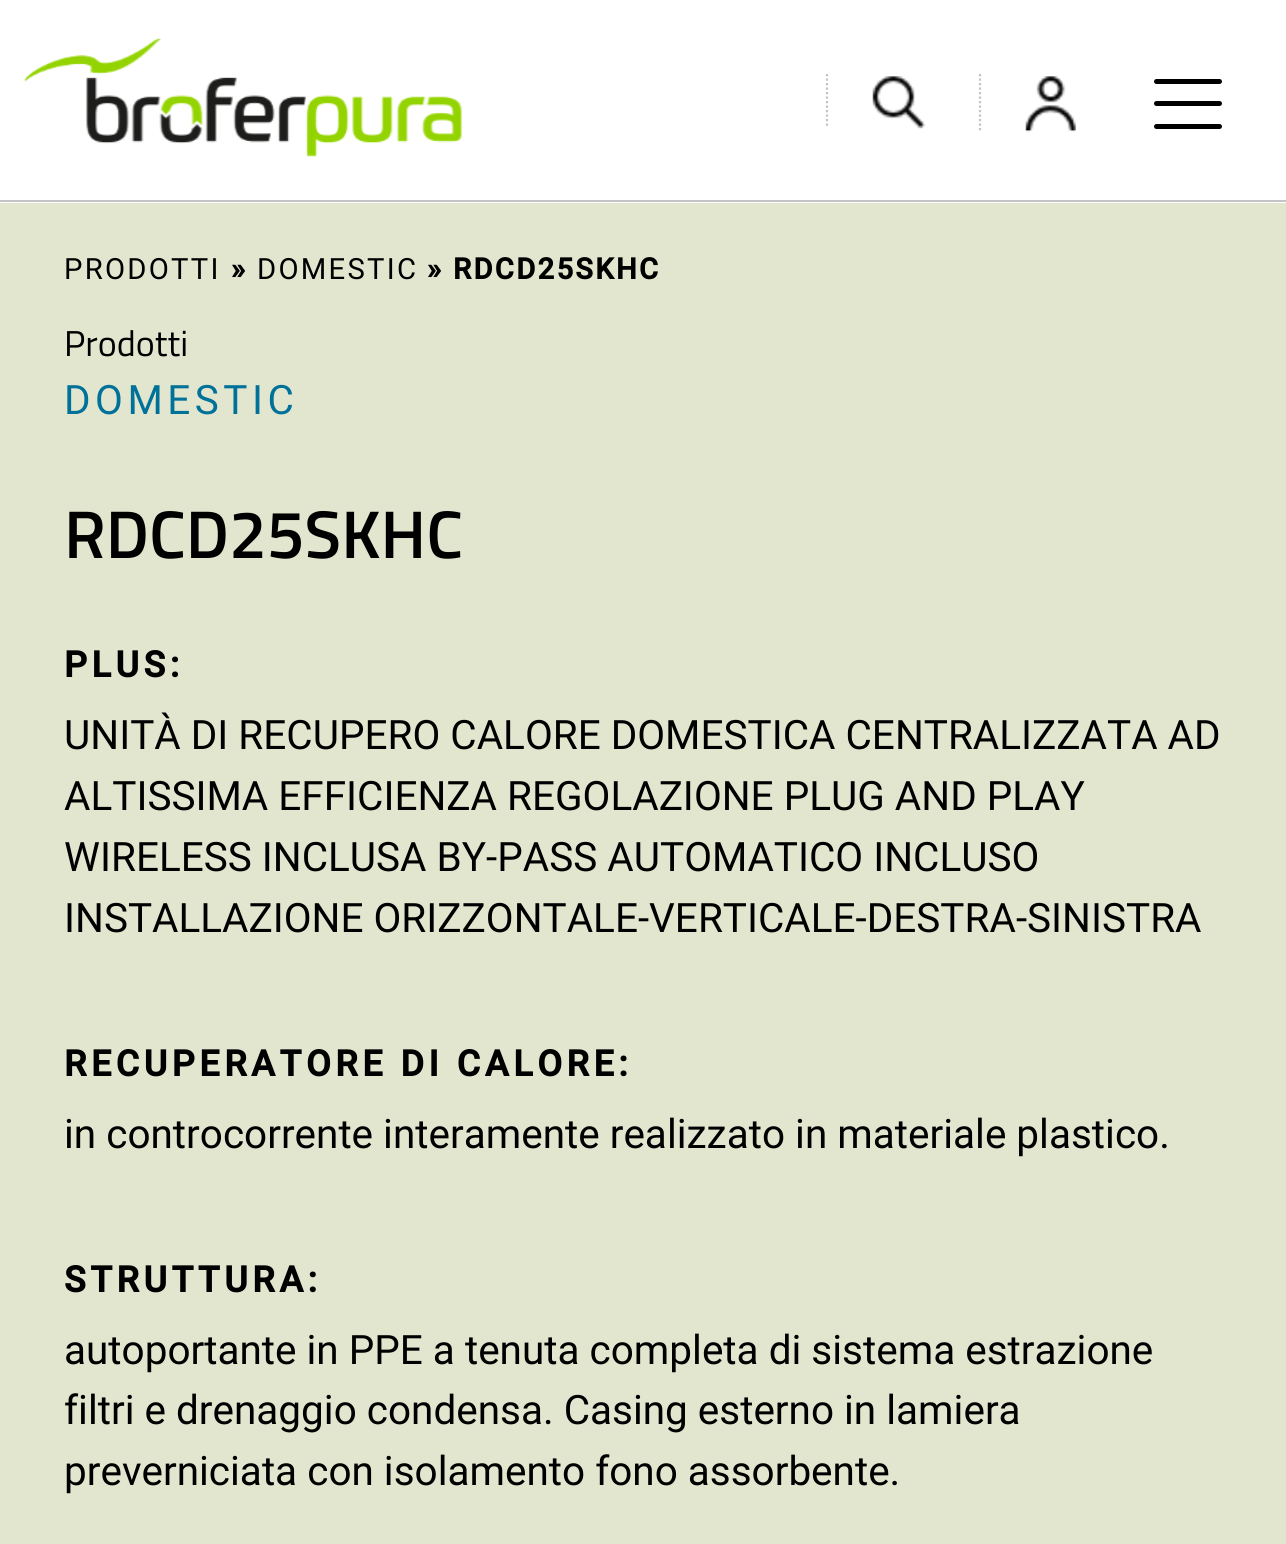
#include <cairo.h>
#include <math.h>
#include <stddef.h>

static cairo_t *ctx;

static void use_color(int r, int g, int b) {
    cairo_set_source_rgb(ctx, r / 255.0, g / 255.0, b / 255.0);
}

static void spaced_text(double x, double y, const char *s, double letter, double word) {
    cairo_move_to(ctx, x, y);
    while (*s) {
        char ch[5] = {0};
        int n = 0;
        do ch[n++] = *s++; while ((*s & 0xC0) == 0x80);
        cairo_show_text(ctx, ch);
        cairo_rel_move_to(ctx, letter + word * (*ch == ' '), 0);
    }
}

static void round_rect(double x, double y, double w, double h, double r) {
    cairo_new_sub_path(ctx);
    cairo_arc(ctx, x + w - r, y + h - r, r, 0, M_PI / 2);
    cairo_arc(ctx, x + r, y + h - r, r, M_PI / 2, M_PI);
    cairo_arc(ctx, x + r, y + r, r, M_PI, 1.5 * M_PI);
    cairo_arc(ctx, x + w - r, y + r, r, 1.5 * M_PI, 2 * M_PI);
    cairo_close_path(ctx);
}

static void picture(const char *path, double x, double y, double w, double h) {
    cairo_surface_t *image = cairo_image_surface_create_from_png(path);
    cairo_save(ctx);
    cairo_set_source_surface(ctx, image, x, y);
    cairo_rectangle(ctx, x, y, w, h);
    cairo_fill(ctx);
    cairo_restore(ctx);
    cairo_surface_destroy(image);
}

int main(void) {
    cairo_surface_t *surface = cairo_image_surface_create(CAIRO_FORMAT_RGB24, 1286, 1544);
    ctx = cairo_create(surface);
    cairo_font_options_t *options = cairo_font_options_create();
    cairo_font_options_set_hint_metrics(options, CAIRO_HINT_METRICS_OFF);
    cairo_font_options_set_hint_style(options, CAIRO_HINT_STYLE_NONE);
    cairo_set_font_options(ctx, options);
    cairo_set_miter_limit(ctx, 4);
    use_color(226, 230, 207);
    cairo_paint(ctx);
    use_color(255, 255, 255);
    cairo_rectangle(ctx, 0, 0, 1286, 203);
    cairo_fill(ctx);
    use_color(196, 196, 196);
    cairo_rectangle(ctx, 0, 200, 1286, 2);
    cairo_fill(ctx);
    picture("img1.png", 24, 38, 438, 119);
    cairo_new_path(ctx);
    cairo_move_to(ctx, 827, 74);
    cairo_line_to(ctx, 827, 128);
    cairo_set_line_width(ctx, 2.2);
    cairo_set_dash(ctx, (double[]){2.25, 2.25}, 2, 0);
    cairo_stroke(ctx);
    picture("img2.png", 872, 76, 53, 53);
    cairo_new_path(ctx);
    cairo_move_to(ctx, 980, 74);
    cairo_line_to(ctx, 980, 130.5);
    cairo_stroke(ctx);
    picture("img3.png", 1025, 76, 51, 56);
    use_color(0, 0, 0);
    round_rect(1154, 79, 68, 5, 2.5);
    cairo_fill(ctx);
    round_rect(1154, 101, 68, 5, 2.5);
    cairo_fill(ctx);
    round_rect(1154, 124, 68, 5, 2.5);
    cairo_fill(ctx);
    cairo_select_font_face(ctx, "Roboto", CAIRO_FONT_SLANT_NORMAL, CAIRO_FONT_WEIGHT_NORMAL);
    cairo_set_font_size(ctx, 29.25);
    spaced_text(64, 279, "PRODOTTI", 2.25, 0);
    cairo_select_font_face(ctx, "Roboto", CAIRO_FONT_SLANT_NORMAL, CAIRO_FONT_WEIGHT_BOLD);
    spaced_text(231, 279, "»", 2.25, 0);
    cairo_select_font_face(ctx, "Roboto", CAIRO_FONT_SLANT_NORMAL, CAIRO_FONT_WEIGHT_NORMAL);
    spaced_text(257, 279, "DOMESTIC", 2.25, 0);
    cairo_select_font_face(ctx, "Roboto", CAIRO_FONT_SLANT_NORMAL, CAIRO_FONT_WEIGHT_BOLD);
    spaced_text(427, 279, "» RDCD25SKHC", 2.25, 0);
    cairo_select_font_face(ctx, "Titillium Web", CAIRO_FONT_SLANT_NORMAL, CAIRO_FONT_WEIGHT_NORMAL);
    cairo_set_font_size(ctx, 36);
    cairo_move_to(ctx, 64, 356);
    cairo_show_text(ctx, "Prodotti");
    cairo_select_font_face(ctx, "Roboto", CAIRO_FONT_SLANT_NORMAL, CAIRO_FONT_WEIGHT_NORMAL);
    cairo_set_font_size(ctx, 40.5);
    use_color(0, 113, 153);
    spaced_text(64, 414, "DOMESTIC", 4.5, 0);
    cairo_select_font_face(ctx, "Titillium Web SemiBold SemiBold", CAIRO_FONT_SLANT_NORMAL, CAIRO_FONT_WEIGHT_NORMAL);
    cairo_set_font_size(ctx, 67.5);
    use_color(0, 0, 0);
    cairo_move_to(ctx, 64, 558);
    cairo_show_text(ctx, "RDCD25SKHC");
    cairo_select_font_face(ctx, "Roboto", CAIRO_FONT_SLANT_NORMAL, CAIRO_FONT_WEIGHT_BOLD);
    cairo_set_font_size(ctx, 36);
    spaced_text(64, 677, "PLUS:", 4.5, 0);
    cairo_select_font_face(ctx, "Roboto", CAIRO_FONT_SLANT_NORMAL, CAIRO_FONT_WEIGHT_NORMAL);
    cairo_set_font_size(ctx, 40.5);
    cairo_move_to(ctx, 64, 749);
    cairo_show_text(ctx, "UNITÀ DI RECUPERO CALORE DOMESTICA CENTRALIZZATA AD");
    cairo_move_to(ctx, 64, 810);
    cairo_show_text(ctx, "ALTISSIMA EFFICIENZA REGOLAZIONE PLUG AND PLAY");
    cairo_move_to(ctx, 64, 871);
    cairo_show_text(ctx, "WIRELESS INCLUSA BY-PASS AUTOMATICO INCLUSO");
    cairo_move_to(ctx, 64, 932);
    cairo_show_text(ctx, "INSTALLAZIONE ORIZZONTALE-VERTICALE-DESTRA-SINISTRA");
    cairo_select_font_face(ctx, "Roboto", CAIRO_FONT_SLANT_NORMAL, CAIRO_FONT_WEIGHT_BOLD);
    cairo_set_font_size(ctx, 36);
    spaced_text(64, 1076, "RECUPERATORE DI CALORE:", 4.5, 0);
    cairo_select_font_face(ctx, "Roboto", CAIRO_FONT_SLANT_NORMAL, CAIRO_FONT_WEIGHT_NORMAL);
    cairo_set_font_size(ctx, 40.5);
    cairo_move_to(ctx, 64, 1148);
    cairo_show_text(ctx, "in controcorrente interamente realizzato in materiale plastico.");
    cairo_select_font_face(ctx, "Roboto", CAIRO_FONT_SLANT_NORMAL, CAIRO_FONT_WEIGHT_BOLD);
    cairo_set_font_size(ctx, 36);
    spaced_text(64, 1292, "STRUTTURA:", 4.5, 0);
    cairo_select_font_face(ctx, "Roboto", CAIRO_FONT_SLANT_NORMAL, CAIRO_FONT_WEIGHT_NORMAL);
    cairo_set_font_size(ctx, 40.5);
    cairo_move_to(ctx, 64, 1364);
    cairo_show_text(ctx, "autoportante in PPE a tenuta completa di sistema estrazione");
    cairo_move_to(ctx, 64, 1424);
    cairo_show_text(ctx, "filtri e drenaggio condensa. Casing esterno in lamiera");
    cairo_move_to(ctx, 64, 1485);
    cairo_show_text(ctx, "preverniciata con isolamento fono assorbente.");
    cairo_surface_write_to_png(surface, "result.png");
    cairo_font_options_destroy(options);
    cairo_destroy(ctx);
    cairo_surface_destroy(surface);
    return 0;
}
